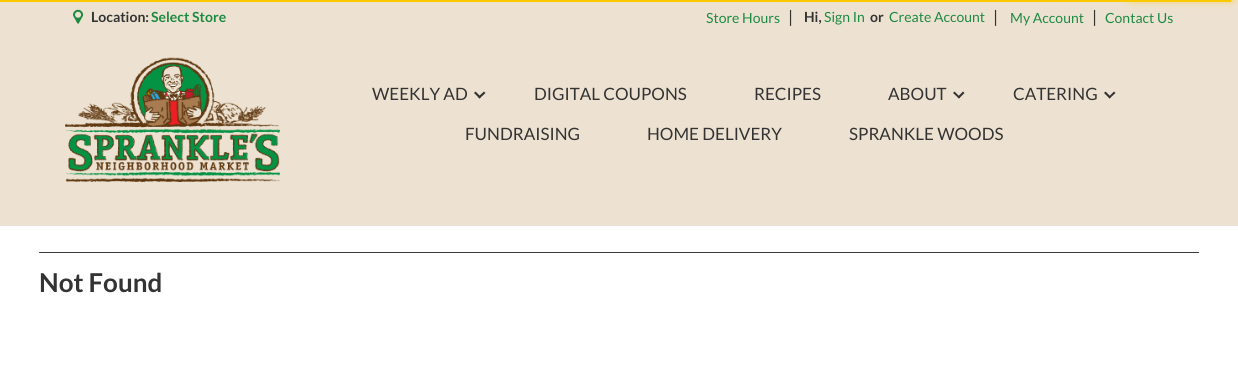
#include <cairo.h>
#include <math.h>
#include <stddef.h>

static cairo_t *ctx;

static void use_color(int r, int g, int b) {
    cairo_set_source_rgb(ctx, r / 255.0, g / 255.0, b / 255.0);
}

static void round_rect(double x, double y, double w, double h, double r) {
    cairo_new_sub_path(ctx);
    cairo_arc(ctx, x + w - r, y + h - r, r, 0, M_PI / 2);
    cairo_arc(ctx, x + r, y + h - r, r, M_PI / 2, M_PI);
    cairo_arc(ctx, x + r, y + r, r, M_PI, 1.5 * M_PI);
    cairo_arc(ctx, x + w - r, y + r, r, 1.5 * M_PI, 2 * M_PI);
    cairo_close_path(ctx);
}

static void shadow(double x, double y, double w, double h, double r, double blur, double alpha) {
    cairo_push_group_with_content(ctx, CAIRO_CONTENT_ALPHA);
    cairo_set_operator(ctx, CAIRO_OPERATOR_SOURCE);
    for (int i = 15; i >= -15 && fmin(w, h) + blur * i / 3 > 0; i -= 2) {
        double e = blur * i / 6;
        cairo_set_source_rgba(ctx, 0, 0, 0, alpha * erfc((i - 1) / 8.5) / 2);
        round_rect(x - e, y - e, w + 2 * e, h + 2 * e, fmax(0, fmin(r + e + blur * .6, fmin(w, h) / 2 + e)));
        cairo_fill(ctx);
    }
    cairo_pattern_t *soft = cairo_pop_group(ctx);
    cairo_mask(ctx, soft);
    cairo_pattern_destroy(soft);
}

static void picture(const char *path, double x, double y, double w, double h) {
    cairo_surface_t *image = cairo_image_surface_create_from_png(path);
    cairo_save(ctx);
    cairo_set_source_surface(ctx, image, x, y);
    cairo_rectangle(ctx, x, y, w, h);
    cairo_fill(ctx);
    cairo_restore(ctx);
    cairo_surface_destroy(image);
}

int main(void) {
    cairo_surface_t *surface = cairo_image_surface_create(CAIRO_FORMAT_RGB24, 1238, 380);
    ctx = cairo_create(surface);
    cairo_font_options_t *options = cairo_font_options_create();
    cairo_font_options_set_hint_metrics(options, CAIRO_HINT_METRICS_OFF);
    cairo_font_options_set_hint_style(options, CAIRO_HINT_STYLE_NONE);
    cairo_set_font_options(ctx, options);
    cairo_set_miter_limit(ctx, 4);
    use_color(255, 255, 255);
    cairo_paint(ctx);
    use_color(237, 226, 209);
    cairo_rectangle(ctx, 0, 0, 1238, 226);
    cairo_fill(ctx);
    use_color(250, 201, 1);
    cairo_rectangle(ctx, 0, 0, 1231, 2);
    cairo_fill(ctx);
    use_color(250, 201, 1);
    shadow(1131, -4, 100, 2, 0, 2.5, 1);
    shadow(1131, -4, 100, 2, 0, 5, 1);
    picture("img1.png", 73, 9, 11, 15);
    cairo_select_font_face(ctx, "Lato", CAIRO_FONT_SLANT_NORMAL, CAIRO_FONT_WEIGHT_BOLD);
    cairo_set_font_size(ctx, 14);
    use_color(51, 51, 51);
    cairo_move_to(ctx, 91, 22);
    cairo_show_text(ctx, "Location:");
    use_color(29, 138, 66);
    cairo_move_to(ctx, 151, 22);
    cairo_show_text(ctx, "Select Store");
    cairo_select_font_face(ctx, "Lato", CAIRO_FONT_SLANT_NORMAL, CAIRO_FONT_WEIGHT_NORMAL);
    cairo_move_to(ctx, 706, 23);
    cairo_show_text(ctx, "Store Hours");
    cairo_set_font_size(ctx, 17);
    use_color(51, 51, 51);
    cairo_move_to(ctx, 788, 23);
    cairo_show_text(ctx, "|");
    cairo_select_font_face(ctx, "Lato", CAIRO_FONT_SLANT_NORMAL, CAIRO_FONT_WEIGHT_BOLD);
    cairo_set_font_size(ctx, 14);
    cairo_move_to(ctx, 804, 22);
    cairo_show_text(ctx, "Hi,");
    cairo_select_font_face(ctx, "Lato", CAIRO_FONT_SLANT_NORMAL, CAIRO_FONT_WEIGHT_NORMAL);
    use_color(29, 138, 66);
    cairo_move_to(ctx, 824, 22);
    cairo_show_text(ctx, "Sign In");
    cairo_select_font_face(ctx, "Lato", CAIRO_FONT_SLANT_NORMAL, CAIRO_FONT_WEIGHT_BOLD);
    use_color(51, 51, 51);
    cairo_move_to(ctx, 870, 22);
    cairo_show_text(ctx, "or");
    cairo_select_font_face(ctx, "Lato", CAIRO_FONT_SLANT_NORMAL, CAIRO_FONT_WEIGHT_NORMAL);
    use_color(29, 138, 66);
    cairo_move_to(ctx, 889, 22);
    cairo_show_text(ctx, "Create Account");
    cairo_set_font_size(ctx, 17);
    use_color(51, 51, 51);
    cairo_move_to(ctx, 993, 23);
    cairo_show_text(ctx, "|");
    cairo_set_font_size(ctx, 14);
    use_color(29, 138, 66);
    cairo_move_to(ctx, 1010, 23);
    cairo_show_text(ctx, "My Account");
    cairo_set_font_size(ctx, 17);
    use_color(51, 51, 51);
    cairo_move_to(ctx, 1092, 23);
    cairo_show_text(ctx, "|");
    cairo_set_font_size(ctx, 14);
    use_color(29, 138, 66);
    cairo_move_to(ctx, 1105, 23);
    cairo_show_text(ctx, "Contact Us");
    picture("img2.png", 65, 57, 215, 125);
    cairo_set_font_size(ctx, 17);
    use_color(51, 51, 51);
    cairo_move_to(ctx, 372, 100);
    cairo_show_text(ctx, "WEEKLY AD");
    cairo_new_path(ctx);
    cairo_move_to(ctx, 485.5, 93);
    cairo_line_to(ctx, 479.5, 98.5);
    cairo_line_to(ctx, 478, 97);
    cairo_line_to(ctx, 484, 91.5);
    cairo_close_path(ctx);
    cairo_fill(ctx);
    cairo_new_path(ctx);
    cairo_move_to(ctx, 481, 97);
    cairo_line_to(ctx, 479.5, 98.5);
    cairo_line_to(ctx, 474, 93);
    cairo_line_to(ctx, 475.5, 91.5);
    cairo_close_path(ctx);
    cairo_fill(ctx);
    cairo_move_to(ctx, 534, 100);
    cairo_show_text(ctx, "DIGITAL COUPONS");
    cairo_move_to(ctx, 754, 100);
    cairo_show_text(ctx, "RECIPES");
    cairo_move_to(ctx, 888, 100);
    cairo_show_text(ctx, "ABOUT");
    cairo_new_path(ctx);
    cairo_move_to(ctx, 964.5, 93);
    cairo_line_to(ctx, 959, 98.5);
    cairo_line_to(ctx, 957.5, 97);
    cairo_line_to(ctx, 963, 91.5);
    cairo_close_path(ctx);
    cairo_fill(ctx);
    cairo_new_path(ctx);
    cairo_move_to(ctx, 960, 97);
    cairo_line_to(ctx, 959, 98.5);
    cairo_line_to(ctx, 953, 93);
    cairo_line_to(ctx, 954.5, 91.5);
    cairo_close_path(ctx);
    cairo_fill(ctx);
    cairo_move_to(ctx, 1013, 100);
    cairo_show_text(ctx, "CATERING");
    cairo_new_path(ctx);
    cairo_move_to(ctx, 1115.5, 93);
    cairo_line_to(ctx, 1109.5, 98.5);
    cairo_line_to(ctx, 1108.5, 97);
    cairo_line_to(ctx, 1114, 91.5);
    cairo_close_path(ctx);
    cairo_fill(ctx);
    cairo_new_path(ctx);
    cairo_move_to(ctx, 1111, 97);
    cairo_line_to(ctx, 1109.5, 98.5);
    cairo_line_to(ctx, 1104, 93);
    cairo_line_to(ctx, 1105.5, 91.5);
    cairo_close_path(ctx);
    cairo_fill(ctx);
    cairo_move_to(ctx, 465, 140);
    cairo_show_text(ctx, "FUNDRAISING");
    cairo_move_to(ctx, 647, 140);
    cairo_show_text(ctx, "HOME DELIVERY");
    cairo_move_to(ctx, 849, 140);
    cairo_show_text(ctx, "SPRANKLE WOODS");
    use_color(59, 59, 59);
    cairo_rectangle(ctx, 39, 252, 1160, 1);
    cairo_fill(ctx);
    cairo_select_font_face(ctx, "Lato", CAIRO_FONT_SLANT_NORMAL, CAIRO_FONT_WEIGHT_BOLD);
    cairo_set_font_size(ctx, 26);
    use_color(51, 51, 51);
    cairo_move_to(ctx, 39, 292);
    cairo_show_text(ctx, "Not Found");
    cairo_surface_write_to_png(surface, "result.png");
    cairo_font_options_destroy(options);
    cairo_destroy(ctx);
    cairo_surface_destroy(surface);
    return 0;
}
